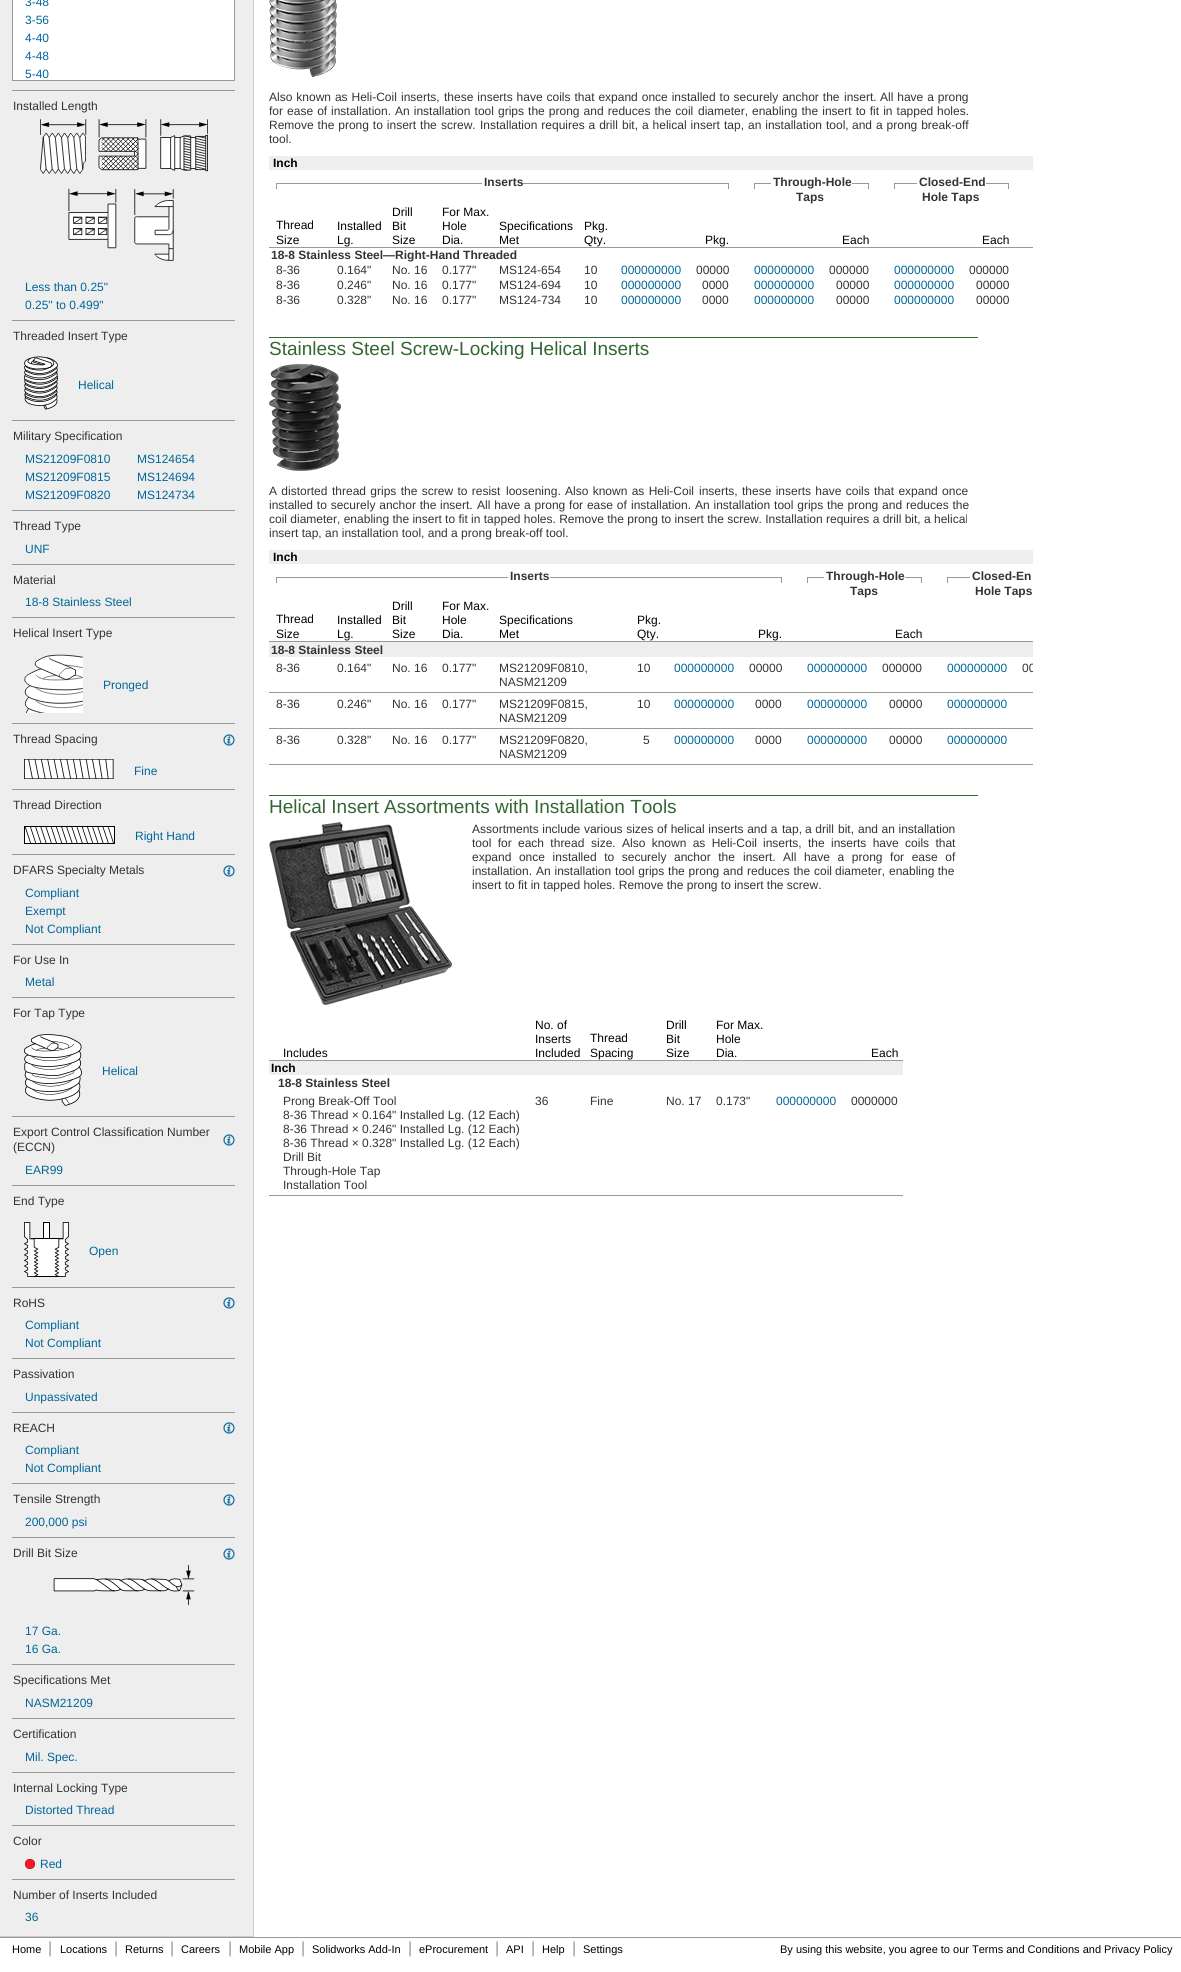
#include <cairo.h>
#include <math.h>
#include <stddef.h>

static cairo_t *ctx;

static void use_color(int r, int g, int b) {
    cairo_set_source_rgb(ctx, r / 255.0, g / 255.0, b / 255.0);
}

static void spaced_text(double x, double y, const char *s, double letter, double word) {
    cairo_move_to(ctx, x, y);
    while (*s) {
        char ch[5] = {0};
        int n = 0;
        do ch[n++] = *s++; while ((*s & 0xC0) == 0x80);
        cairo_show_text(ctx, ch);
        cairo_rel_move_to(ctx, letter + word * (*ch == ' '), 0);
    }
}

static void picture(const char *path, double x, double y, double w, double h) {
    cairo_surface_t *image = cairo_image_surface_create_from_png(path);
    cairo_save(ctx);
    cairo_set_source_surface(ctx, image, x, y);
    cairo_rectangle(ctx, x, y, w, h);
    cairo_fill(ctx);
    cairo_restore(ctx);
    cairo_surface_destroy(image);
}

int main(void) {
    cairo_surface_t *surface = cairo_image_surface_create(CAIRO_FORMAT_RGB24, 1181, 1972);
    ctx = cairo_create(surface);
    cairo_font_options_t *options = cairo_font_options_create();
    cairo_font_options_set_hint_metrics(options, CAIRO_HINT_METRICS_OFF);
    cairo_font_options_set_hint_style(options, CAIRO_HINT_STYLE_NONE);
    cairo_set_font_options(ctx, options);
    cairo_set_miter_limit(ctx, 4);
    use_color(255, 255, 255);
    cairo_paint(ctx);
    use_color(238, 238, 238);
    cairo_rectangle(ctx, 0, 0, 253, 1936);
    cairo_fill(ctx);
    use_color(204, 204, 204);
    cairo_rectangle(ctx, 253, 0, 1, 1937);
    cairo_fill(ctx);
    cairo_rectangle(ctx, 0, 1936, 254, 1);
    cairo_fill(ctx);
    use_color(255, 255, 255);
    cairo_rectangle(ctx, 13, 0, 221, 80);
    cairo_fill(ctx);
    use_color(153, 153, 153);
    cairo_rectangle(ctx, 234, 0, 1, 81);
    cairo_fill(ctx);
    cairo_rectangle(ctx, 12, 80, 223, 1);
    cairo_fill(ctx);
    cairo_rectangle(ctx, 12, 0, 1, 81);
    cairo_fill(ctx);
    cairo_select_font_face(ctx, "Liberation Sans", CAIRO_FONT_SLANT_NORMAL, CAIRO_FONT_WEIGHT_NORMAL);
    cairo_set_font_size(ctx, 12);
    use_color(0, 102, 153);
    cairo_move_to(ctx, 25, 6);
    cairo_show_text(ctx, "3-48");
    cairo_move_to(ctx, 25, 24);
    cairo_show_text(ctx, "3-56");
    cairo_move_to(ctx, 25, 42);
    cairo_show_text(ctx, "4-40");
    cairo_move_to(ctx, 25, 60);
    cairo_show_text(ctx, "4-48");
    cairo_move_to(ctx, 25, 78);
    cairo_show_text(ctx, "5-40");
    use_color(153, 153, 153);
    cairo_rectangle(ctx, 12, 90, 223, 1);
    cairo_fill(ctx);
    use_color(51, 51, 51);
    cairo_move_to(ctx, 13, 110);
    cairo_show_text(ctx, "Installed Length");
    picture("img1.png", 40, 119, 168, 142);
    use_color(0, 102, 153);
    cairo_move_to(ctx, 25, 291);
    cairo_show_text(ctx, "Less than 0.25\"");
    cairo_move_to(ctx, 25, 309);
    cairo_show_text(ctx, "0.25\" to 0.499\"");
    use_color(153, 153, 153);
    cairo_rectangle(ctx, 12, 320, 223, 1);
    cairo_fill(ctx);
    use_color(51, 51, 51);
    cairo_move_to(ctx, 13, 340);
    cairo_show_text(ctx, "Threaded Insert Type");
    picture("img2.png", 24, 356, 34, 54);
    use_color(0, 102, 153);
    cairo_move_to(ctx, 78, 389);
    cairo_show_text(ctx, "Helical");
    use_color(153, 153, 153);
    cairo_rectangle(ctx, 12, 420, 223, 1);
    cairo_fill(ctx);
    use_color(51, 51, 51);
    cairo_move_to(ctx, 13, 440);
    cairo_show_text(ctx, "Military Specification");
    use_color(0, 102, 153);
    cairo_move_to(ctx, 25, 463);
    cairo_show_text(ctx, "MS21209F0810");
    cairo_move_to(ctx, 25, 481);
    cairo_show_text(ctx, "MS21209F0815");
    cairo_move_to(ctx, 25, 499);
    cairo_show_text(ctx, "MS21209F0820");
    cairo_move_to(ctx, 137, 463);
    cairo_show_text(ctx, "MS124654");
    cairo_move_to(ctx, 137, 481);
    cairo_show_text(ctx, "MS124694");
    cairo_move_to(ctx, 137, 499);
    cairo_show_text(ctx, "MS124734");
    use_color(153, 153, 153);
    cairo_rectangle(ctx, 12, 510, 223, 1);
    cairo_fill(ctx);
    use_color(51, 51, 51);
    cairo_move_to(ctx, 13, 530);
    cairo_show_text(ctx, "Thread Type");
    use_color(0, 102, 153);
    cairo_move_to(ctx, 25, 553);
    cairo_show_text(ctx, "UNF");
    use_color(153, 153, 153);
    cairo_rectangle(ctx, 12, 564, 223, 1);
    cairo_fill(ctx);
    use_color(51, 51, 51);
    cairo_move_to(ctx, 13, 584);
    cairo_show_text(ctx, "Material");
    use_color(0, 102, 153);
    cairo_move_to(ctx, 25, 606);
    cairo_show_text(ctx, "18-8 Stainless Steel");
    use_color(153, 153, 153);
    cairo_rectangle(ctx, 12, 617, 223, 1);
    cairo_fill(ctx);
    use_color(51, 51, 51);
    cairo_move_to(ctx, 13, 637);
    cairo_show_text(ctx, "Helical Insert Type");
    picture("img3.png", 24, 654, 59, 59);
    use_color(0, 102, 153);
    cairo_move_to(ctx, 103, 689);
    cairo_show_text(ctx, "Pronged");
    use_color(153, 153, 153);
    cairo_rectangle(ctx, 12, 723, 223, 1);
    cairo_fill(ctx);
    use_color(51, 51, 51);
    cairo_move_to(ctx, 13, 743);
    cairo_show_text(ctx, "Thread Spacing");
    picture("img4.png", 223, 734, 12, 12);
    picture("img5.png", 24, 759, 90, 20);
    use_color(0, 102, 153);
    cairo_move_to(ctx, 134, 775);
    cairo_show_text(ctx, "Fine");
    use_color(153, 153, 153);
    cairo_rectangle(ctx, 12, 789, 223, 1);
    cairo_fill(ctx);
    use_color(51, 51, 51);
    cairo_move_to(ctx, 13, 809);
    cairo_show_text(ctx, "Thread Direction");
    picture("img6.png", 24, 826, 91, 18);
    use_color(0, 102, 153);
    cairo_move_to(ctx, 135, 840);
    cairo_show_text(ctx, "Right Hand");
    use_color(153, 153, 153);
    cairo_rectangle(ctx, 12, 854, 223, 1);
    cairo_fill(ctx);
    use_color(51, 51, 51);
    cairo_move_to(ctx, 13, 874);
    cairo_show_text(ctx, "DFARS Specialty Metals");
    picture("img4.png", 223, 865, 12, 12);
    use_color(0, 102, 153);
    cairo_move_to(ctx, 25, 897);
    cairo_show_text(ctx, "Compliant");
    cairo_move_to(ctx, 25, 915);
    cairo_show_text(ctx, "Exempt");
    cairo_move_to(ctx, 25, 933);
    cairo_show_text(ctx, "Not Compliant");
    use_color(153, 153, 153);
    cairo_rectangle(ctx, 12, 944, 223, 1);
    cairo_fill(ctx);
    use_color(51, 51, 51);
    cairo_move_to(ctx, 13, 964);
    cairo_show_text(ctx, "For Use In");
    use_color(0, 102, 153);
    cairo_move_to(ctx, 25, 986);
    cairo_show_text(ctx, "Metal");
    use_color(153, 153, 153);
    cairo_rectangle(ctx, 12, 997, 223, 1);
    cairo_fill(ctx);
    use_color(51, 51, 51);
    cairo_move_to(ctx, 13, 1017);
    cairo_show_text(ctx, "For Tap Type");
    picture("img7.png", 24, 1034, 58, 72);
    use_color(0, 102, 153);
    cairo_move_to(ctx, 102, 1075);
    cairo_show_text(ctx, "Helical");
    use_color(153, 153, 153);
    cairo_rectangle(ctx, 12, 1116, 223, 1);
    cairo_fill(ctx);
    use_color(51, 51, 51);
    cairo_move_to(ctx, 13, 1136);
    cairo_show_text(ctx, "Export Control Classification Number");
    cairo_move_to(ctx, 13, 1151);
    cairo_show_text(ctx, "(ECCN)");
    picture("img4.png", 223, 1134, 12, 12);
    use_color(0, 102, 153);
    cairo_move_to(ctx, 25, 1174);
    cairo_show_text(ctx, "EAR99");
    use_color(153, 153, 153);
    cairo_rectangle(ctx, 12, 1185, 223, 1);
    cairo_fill(ctx);
    use_color(51, 51, 51);
    cairo_move_to(ctx, 13, 1205);
    cairo_show_text(ctx, "End Type");
    picture("img8.png", 24, 1222, 45, 55);
    use_color(0, 102, 153);
    cairo_move_to(ctx, 89, 1255);
    cairo_show_text(ctx, "Open");
    use_color(153, 153, 153);
    cairo_rectangle(ctx, 12, 1287, 223, 1);
    cairo_fill(ctx);
    use_color(51, 51, 51);
    cairo_move_to(ctx, 13, 1307);
    cairo_show_text(ctx, "RoHS");
    picture("img4.png", 223, 1297, 12, 12);
    use_color(0, 102, 153);
    cairo_move_to(ctx, 25, 1329);
    cairo_show_text(ctx, "Compliant");
    cairo_move_to(ctx, 25, 1347);
    cairo_show_text(ctx, "Not Compliant");
    use_color(153, 153, 153);
    cairo_rectangle(ctx, 12, 1358, 223, 1);
    cairo_fill(ctx);
    use_color(51, 51, 51);
    cairo_move_to(ctx, 13, 1378);
    cairo_show_text(ctx, "Passivation");
    use_color(0, 102, 153);
    cairo_move_to(ctx, 25, 1401);
    cairo_show_text(ctx, "Unpassivated");
    use_color(153, 153, 153);
    cairo_rectangle(ctx, 12, 1412, 223, 1);
    cairo_fill(ctx);
    use_color(51, 51, 51);
    cairo_move_to(ctx, 13, 1432);
    cairo_show_text(ctx, "REACH");
    picture("img4.png", 223, 1422, 12, 12);
    use_color(0, 102, 153);
    cairo_move_to(ctx, 25, 1454);
    cairo_show_text(ctx, "Compliant");
    cairo_move_to(ctx, 25, 1472);
    cairo_show_text(ctx, "Not Compliant");
    use_color(153, 153, 153);
    cairo_rectangle(ctx, 12, 1483, 223, 1);
    cairo_fill(ctx);
    use_color(51, 51, 51);
    cairo_move_to(ctx, 13, 1503);
    cairo_show_text(ctx, "Tensile Strength");
    picture("img4.png", 223, 1494, 12, 12);
    use_color(0, 102, 153);
    cairo_move_to(ctx, 25, 1526);
    cairo_show_text(ctx, "200,000 psi");
    use_color(153, 153, 153);
    cairo_rectangle(ctx, 12, 1537, 223, 1);
    cairo_fill(ctx);
    use_color(51, 51, 51);
    cairo_move_to(ctx, 13, 1557);
    cairo_show_text(ctx, "Drill Bit Size");
    picture("img4.png", 223, 1548, 12, 12);
    picture("img9.png", 53, 1565, 142, 40);
    use_color(0, 102, 153);
    cairo_move_to(ctx, 25, 1635);
    cairo_show_text(ctx, "17 Ga.");
    cairo_move_to(ctx, 25, 1653);
    cairo_show_text(ctx, "16 Ga.");
    use_color(153, 153, 153);
    cairo_rectangle(ctx, 12, 1664, 223, 1);
    cairo_fill(ctx);
    use_color(51, 51, 51);
    cairo_move_to(ctx, 13, 1684);
    cairo_show_text(ctx, "Specifications Met");
    use_color(0, 102, 153);
    cairo_move_to(ctx, 25, 1707);
    cairo_show_text(ctx, "NASM21209");
    use_color(153, 153, 153);
    cairo_rectangle(ctx, 12, 1718, 223, 1);
    cairo_fill(ctx);
    use_color(51, 51, 51);
    cairo_move_to(ctx, 13, 1738);
    cairo_show_text(ctx, "Certification");
    use_color(0, 102, 153);
    cairo_move_to(ctx, 25, 1761);
    cairo_show_text(ctx, "Mil. Spec.");
    use_color(153, 153, 153);
    cairo_rectangle(ctx, 12, 1772, 223, 1);
    cairo_fill(ctx);
    use_color(51, 51, 51);
    cairo_move_to(ctx, 13, 1792);
    cairo_show_text(ctx, "Internal Locking Type");
    use_color(0, 102, 153);
    cairo_move_to(ctx, 25, 1814);
    cairo_show_text(ctx, "Distorted Thread");
    use_color(153, 153, 153);
    cairo_rectangle(ctx, 12, 1825, 223, 1);
    cairo_fill(ctx);
    use_color(51, 51, 51);
    cairo_move_to(ctx, 13, 1845);
    cairo_show_text(ctx, "Color");
    picture("img10.png", 25, 1859, 10, 10);
    use_color(0, 102, 153);
    cairo_move_to(ctx, 40, 1868);
    cairo_show_text(ctx, "Red");
    use_color(153, 153, 153);
    cairo_rectangle(ctx, 12, 1879, 223, 1);
    cairo_fill(ctx);
    use_color(51, 51, 51);
    cairo_move_to(ctx, 13, 1899);
    cairo_show_text(ctx, "Number of Inserts Included");
    use_color(0, 102, 153);
    cairo_move_to(ctx, 25, 1921);
    cairo_show_text(ctx, "36");
    picture("img11.png", 269, 0, 68, 77);
    use_color(51, 51, 51);
    spaced_text(269, 101, "Also known as Heli-Coil", 0, 0.6);
    cairo_move_to(ctx, 401, 101);
    cairo_show_text(ctx, "inserts,");
    spaced_text(444, 101, "these inserts have coils that expand once installed to securely anchor the", 0, 0.6);
    cairo_move_to(ctx, 844, 101);
    cairo_show_text(ctx, "insert.");
    spaced_text(880, 101, "All have a prong", 0, 0.6);
    spaced_text(269, 115, "for ease of", 0, 0.75);
    cairo_move_to(ctx, 331, 115);
    cairo_show_text(ctx, "installation.");
    spaced_text(395, 115, "An installation tool grips the prong and reduces the coil", 0, 0.75);
    cairo_move_to(ctx, 698, 115);
    cairo_show_text(ctx, "diameter,");
    spaced_text(752, 115, "enabling the insert to fit in tapped", 0, 0.75);
    cairo_move_to(ctx, 937, 115);
    cairo_show_text(ctx, "holes.");
    spaced_text(269, 129, "Remove the prong to insert the", 0, 0.6);
    cairo_move_to(ctx, 441, 129);
    cairo_show_text(ctx, "screw.");
    spaced_text(480, 129, "Installation requires a drill", 0, 0.6);
    cairo_move_to(ctx, 622, 129);
    cairo_show_text(ctx, "bit,");
    spaced_text(642, 129, "a helical insert", 0, 0.6);
    cairo_move_to(ctx, 724, 129);
    cairo_show_text(ctx, "tap,");
    spaced_text(748, 129, "an installation", 0, 0.6);
    cairo_move_to(ctx, 826, 129);
    cairo_show_text(ctx, "tool,");
    spaced_text(852, 129, "and a prong break-off", 0, 0.6);
    cairo_move_to(ctx, 269, 143);
    cairo_show_text(ctx, "tool.");
    use_color(238, 238, 238);
    cairo_rectangle(ctx, 269, 156, 764, 14);
    cairo_fill(ctx);
    cairo_select_font_face(ctx, "Liberation Sans", CAIRO_FONT_SLANT_NORMAL, CAIRO_FONT_WEIGHT_BOLD);
    use_color(0, 0, 0);
    cairo_move_to(ctx, 273, 167);
    cairo_show_text(ctx, "Inch");
    use_color(153, 153, 153);
    cairo_rectangle(ctx, 276, 183, 453, 6);
    cairo_fill(ctx);
    use_color(255, 255, 255);
    cairo_rectangle(ctx, 277, 183, 451, 6);
    cairo_fill(ctx);
    use_color(153, 153, 153);
    cairo_rectangle(ctx, 277, 183, 451, 1);
    cairo_fill(ctx);
    use_color(255, 255, 255);
    cairo_rectangle(ctx, 482, 183, 41, 1);
    cairo_fill(ctx);
    use_color(51, 51, 51);
    cairo_move_to(ctx, 484, 186);
    cairo_show_text(ctx, "Inserts");
    use_color(153, 153, 153);
    cairo_rectangle(ctx, 754, 183, 115, 6);
    cairo_fill(ctx);
    use_color(255, 255, 255);
    cairo_rectangle(ctx, 755, 183, 113, 6);
    cairo_fill(ctx);
    use_color(153, 153, 153);
    cairo_rectangle(ctx, 755, 183, 113, 1);
    cairo_fill(ctx);
    use_color(255, 255, 255);
    cairo_rectangle(ctx, 771, 183, 81, 1);
    cairo_fill(ctx);
    use_color(51, 51, 51);
    cairo_move_to(ctx, 773, 186);
    cairo_show_text(ctx, "Through-Hole");
    cairo_move_to(ctx, 796, 201);
    cairo_show_text(ctx, "Taps");
    use_color(153, 153, 153);
    cairo_rectangle(ctx, 894, 183, 115, 6);
    cairo_fill(ctx);
    use_color(255, 255, 255);
    cairo_rectangle(ctx, 895, 183, 113, 6);
    cairo_fill(ctx);
    use_color(153, 153, 153);
    cairo_rectangle(ctx, 895, 183, 113, 1);
    cairo_fill(ctx);
    use_color(255, 255, 255);
    cairo_rectangle(ctx, 917, 183, 69, 1);
    cairo_fill(ctx);
    use_color(51, 51, 51);
    cairo_move_to(ctx, 919, 186);
    cairo_show_text(ctx, "Closed-End");
    cairo_move_to(ctx, 922, 201);
    cairo_show_text(ctx, "Hole Taps");
    use_color(153, 153, 153);
    cairo_rectangle(ctx, 269, 247, 764, 1);
    cairo_fill(ctx);
    cairo_select_font_face(ctx, "Liberation Sans", CAIRO_FONT_SLANT_NORMAL, CAIRO_FONT_WEIGHT_NORMAL);
    use_color(0, 0, 0);
    cairo_move_to(ctx, 276, 229);
    cairo_show_text(ctx, "Thread");
    cairo_move_to(ctx, 276, 244);
    cairo_show_text(ctx, "Size");
    cairo_move_to(ctx, 337, 230);
    cairo_show_text(ctx, "Installed");
    cairo_move_to(ctx, 337, 244);
    cairo_show_text(ctx, "Lg.");
    cairo_move_to(ctx, 392, 216);
    cairo_show_text(ctx, "Drill");
    cairo_move_to(ctx, 392, 230);
    cairo_show_text(ctx, "Bit");
    cairo_move_to(ctx, 392, 244);
    cairo_show_text(ctx, "Size");
    cairo_move_to(ctx, 442, 216);
    cairo_show_text(ctx, "For Max.");
    cairo_move_to(ctx, 442, 230);
    cairo_show_text(ctx, "Hole");
    cairo_move_to(ctx, 442, 244);
    cairo_show_text(ctx, "Dia.");
    cairo_move_to(ctx, 499, 230);
    cairo_show_text(ctx, "Specifications");
    cairo_move_to(ctx, 499, 244);
    cairo_show_text(ctx, "Met");
    cairo_move_to(ctx, 584, 230);
    cairo_show_text(ctx, "Pkg.");
    cairo_move_to(ctx, 584, 244);
    cairo_show_text(ctx, "Qty.");
    cairo_move_to(ctx, 705, 244);
    cairo_show_text(ctx, "Pkg.");
    cairo_move_to(ctx, 842, 244);
    cairo_show_text(ctx, "Each");
    cairo_move_to(ctx, 982, 244);
    cairo_show_text(ctx, "Each");
    cairo_select_font_face(ctx, "Liberation Sans", CAIRO_FONT_SLANT_NORMAL, CAIRO_FONT_WEIGHT_BOLD);
    use_color(51, 51, 51);
    cairo_move_to(ctx, 271, 259);
    cairo_show_text(ctx, "18-8 Stainless Steel—Right-Hand Threaded");
    cairo_select_font_face(ctx, "Liberation Sans", CAIRO_FONT_SLANT_NORMAL, CAIRO_FONT_WEIGHT_NORMAL);
    cairo_move_to(ctx, 276, 274);
    cairo_show_text(ctx, "8-36");
    cairo_move_to(ctx, 337, 274);
    cairo_show_text(ctx, "0.164\"");
    cairo_move_to(ctx, 392, 274);
    cairo_show_text(ctx, "No. 16");
    cairo_move_to(ctx, 442, 274);
    cairo_show_text(ctx, "0.177\"");
    cairo_move_to(ctx, 499, 274);
    cairo_show_text(ctx, "MS124-654");
    cairo_move_to(ctx, 584, 274);
    cairo_show_text(ctx, "10");
    use_color(0, 102, 153);
    cairo_move_to(ctx, 621, 274);
    cairo_show_text(ctx, "000000000");
    use_color(51, 51, 51);
    cairo_move_to(ctx, 696, 274);
    cairo_show_text(ctx, "00000");
    use_color(0, 102, 153);
    cairo_move_to(ctx, 754, 274);
    cairo_show_text(ctx, "000000000");
    use_color(51, 51, 51);
    cairo_move_to(ctx, 829, 274);
    cairo_show_text(ctx, "000000");
    use_color(0, 102, 153);
    cairo_move_to(ctx, 894, 274);
    cairo_show_text(ctx, "000000000");
    use_color(51, 51, 51);
    cairo_move_to(ctx, 969, 274);
    cairo_show_text(ctx, "000000");
    cairo_move_to(ctx, 276, 289);
    cairo_show_text(ctx, "8-36");
    cairo_move_to(ctx, 337, 289);
    cairo_show_text(ctx, "0.246\"");
    cairo_move_to(ctx, 392, 289);
    cairo_show_text(ctx, "No. 16");
    cairo_move_to(ctx, 442, 289);
    cairo_show_text(ctx, "0.177\"");
    cairo_move_to(ctx, 499, 289);
    cairo_show_text(ctx, "MS124-694");
    cairo_move_to(ctx, 584, 289);
    cairo_show_text(ctx, "10");
    use_color(0, 102, 153);
    cairo_move_to(ctx, 621, 289);
    cairo_show_text(ctx, "000000000");
    use_color(51, 51, 51);
    cairo_move_to(ctx, 702, 289);
    cairo_show_text(ctx, "0000");
    use_color(0, 102, 153);
    cairo_move_to(ctx, 754, 289);
    cairo_show_text(ctx, "000000000");
    use_color(51, 51, 51);
    cairo_move_to(ctx, 836, 289);
    cairo_show_text(ctx, "00000");
    use_color(0, 102, 153);
    cairo_move_to(ctx, 894, 289);
    cairo_show_text(ctx, "000000000");
    use_color(51, 51, 51);
    cairo_move_to(ctx, 976, 289);
    cairo_show_text(ctx, "00000");
    cairo_move_to(ctx, 276, 304);
    cairo_show_text(ctx, "8-36");
    cairo_move_to(ctx, 337, 304);
    cairo_show_text(ctx, "0.328\"");
    cairo_move_to(ctx, 392, 304);
    cairo_show_text(ctx, "No. 16");
    cairo_move_to(ctx, 442, 304);
    cairo_show_text(ctx, "0.177\"");
    cairo_move_to(ctx, 499, 304);
    cairo_show_text(ctx, "MS124-734");
    cairo_move_to(ctx, 584, 304);
    cairo_show_text(ctx, "10");
    use_color(0, 102, 153);
    cairo_move_to(ctx, 621, 304);
    cairo_show_text(ctx, "000000000");
    use_color(51, 51, 51);
    cairo_move_to(ctx, 702, 304);
    cairo_show_text(ctx, "0000");
    use_color(0, 102, 153);
    cairo_move_to(ctx, 754, 304);
    cairo_show_text(ctx, "000000000");
    use_color(51, 51, 51);
    cairo_move_to(ctx, 836, 304);
    cairo_show_text(ctx, "00000");
    use_color(0, 102, 153);
    cairo_move_to(ctx, 894, 304);
    cairo_show_text(ctx, "000000000");
    use_color(51, 51, 51);
    cairo_move_to(ctx, 976, 304);
    cairo_show_text(ctx, "00000");
    use_color(51, 102, 51);
    cairo_rectangle(ctx, 269, 337, 709, 1);
    cairo_fill(ctx);
    cairo_set_font_size(ctx, 19);
    cairo_move_to(ctx, 269, 355);
    cairo_show_text(ctx, "Stainless Steel Screw-Locking Helical Inserts");
    picture("img12.png", 269, 364, 72, 107);
    cairo_set_font_size(ctx, 12);
    use_color(51, 51, 51);
    spaced_text(269, 495, "A distorted", 0, 1);
    spaced_text(332, 495, "thread grips the screw to resist", 0, 1);
    cairo_move_to(ctx, 506, 495);
    cairo_show_text(ctx, "loosening.");
    spaced_text(565, 495, "Also known as Heli-Coil", 0, 1);
    cairo_move_to(ctx, 699, 495);
    cairo_show_text(ctx, "inserts,");
    spaced_text(742, 495, "these inserts have coils that expand once", 0, 1);
    spaced_text(269, 509, "installed to securely anchor the", 0, 0.5);
    cairo_move_to(ctx, 440, 509);
    cairo_show_text(ctx, "insert.");
    spaced_text(477, 509, "All have a prong for ease of", 0, 0.5);
    cairo_move_to(ctx, 631, 509);
    cairo_show_text(ctx, "installation.");
    spaced_text(695, 509, "An installation tool grips the prong and reduces the", 0, 0.5);
    cairo_move_to(ctx, 269, 523);
    cairo_show_text(ctx, "coil diameter, enabling the insert to fit in tapped holes. Remove the prong to insert the screw. Installation requires a drill bit, a helical");
    cairo_move_to(ctx, 269, 537);
    cairo_show_text(ctx, "insert tap, an installation tool, and a prong break-off tool.");
    use_color(238, 238, 238);
    cairo_rectangle(ctx, 269, 550, 764, 14);
    cairo_fill(ctx);
    cairo_select_font_face(ctx, "Liberation Sans", CAIRO_FONT_SLANT_NORMAL, CAIRO_FONT_WEIGHT_BOLD);
    use_color(0, 0, 0);
    cairo_move_to(ctx, 273, 561);
    cairo_show_text(ctx, "Inch");
    use_color(153, 153, 153);
    cairo_rectangle(ctx, 276, 577, 506, 6);
    cairo_fill(ctx);
    use_color(255, 255, 255);
    cairo_rectangle(ctx, 277, 577, 504, 6);
    cairo_fill(ctx);
    use_color(153, 153, 153);
    cairo_rectangle(ctx, 277, 577, 504, 1);
    cairo_fill(ctx);
    use_color(255, 255, 255);
    cairo_rectangle(ctx, 508, 577, 42, 1);
    cairo_fill(ctx);
    use_color(51, 51, 51);
    cairo_move_to(ctx, 510, 580);
    cairo_show_text(ctx, "Inserts");
    use_color(153, 153, 153);
    cairo_rectangle(ctx, 807, 577, 115, 6);
    cairo_fill(ctx);
    use_color(255, 255, 255);
    cairo_rectangle(ctx, 808, 577, 113, 6);
    cairo_fill(ctx);
    use_color(153, 153, 153);
    cairo_rectangle(ctx, 808, 577, 113, 1);
    cairo_fill(ctx);
    use_color(255, 255, 255);
    cairo_rectangle(ctx, 824, 577, 81, 1);
    cairo_fill(ctx);
    use_color(51, 51, 51);
    cairo_move_to(ctx, 826, 580);
    cairo_show_text(ctx, "Through-Hole");
    cairo_move_to(ctx, 850, 595);
    cairo_show_text(ctx, "Taps");
    use_color(153, 153, 153);
    cairo_rectangle(ctx, 947, 577, 1, 6);
    cairo_fill(ctx);
    cairo_rectangle(ctx, 948, 577, 22, 1);
    cairo_fill(ctx);
    use_color(51, 51, 51);
    cairo_move_to(ctx, 972, 580);
    cairo_show_text(ctx, "Closed-En");
    cairo_move_to(ctx, 975, 595);
    cairo_show_text(ctx, "Hole Taps");
    use_color(153, 153, 153);
    cairo_rectangle(ctx, 269, 641, 764, 1);
    cairo_fill(ctx);
    cairo_select_font_face(ctx, "Liberation Sans", CAIRO_FONT_SLANT_NORMAL, CAIRO_FONT_WEIGHT_NORMAL);
    use_color(0, 0, 0);
    cairo_move_to(ctx, 276, 623);
    cairo_show_text(ctx, "Thread");
    cairo_move_to(ctx, 276, 638);
    cairo_show_text(ctx, "Size");
    cairo_move_to(ctx, 337, 624);
    cairo_show_text(ctx, "Installed");
    cairo_move_to(ctx, 337, 638);
    cairo_show_text(ctx, "Lg.");
    cairo_move_to(ctx, 392, 610);
    cairo_show_text(ctx, "Drill");
    cairo_move_to(ctx, 392, 624);
    cairo_show_text(ctx, "Bit");
    cairo_move_to(ctx, 392, 638);
    cairo_show_text(ctx, "Size");
    cairo_move_to(ctx, 442, 610);
    cairo_show_text(ctx, "For Max.");
    cairo_move_to(ctx, 442, 624);
    cairo_show_text(ctx, "Hole");
    cairo_move_to(ctx, 442, 638);
    cairo_show_text(ctx, "Dia.");
    cairo_move_to(ctx, 499, 624);
    cairo_show_text(ctx, "Specifications");
    cairo_move_to(ctx, 499, 638);
    cairo_show_text(ctx, "Met");
    cairo_move_to(ctx, 637, 624);
    cairo_show_text(ctx, "Pkg.");
    cairo_move_to(ctx, 637, 638);
    cairo_show_text(ctx, "Qty.");
    cairo_move_to(ctx, 758, 638);
    cairo_show_text(ctx, "Pkg.");
    cairo_move_to(ctx, 895, 638);
    cairo_show_text(ctx, "Each");
    use_color(238, 238, 238);
    cairo_rectangle(ctx, 269, 642, 764, 15);
    cairo_fill(ctx);
    cairo_select_font_face(ctx, "Liberation Sans", CAIRO_FONT_SLANT_NORMAL, CAIRO_FONT_WEIGHT_BOLD);
    use_color(51, 51, 51);
    cairo_move_to(ctx, 271, 654);
    cairo_show_text(ctx, "18-8 Stainless Steel");
    use_color(153, 153, 153);
    cairo_rectangle(ctx, 269, 692, 764, 1);
    cairo_fill(ctx);
    cairo_select_font_face(ctx, "Liberation Sans", CAIRO_FONT_SLANT_NORMAL, CAIRO_FONT_WEIGHT_NORMAL);
    use_color(51, 51, 51);
    cairo_move_to(ctx, 276, 672);
    cairo_show_text(ctx, "8-36");
    cairo_move_to(ctx, 337, 672);
    cairo_show_text(ctx, "0.164\"");
    cairo_move_to(ctx, 392, 672);
    cairo_show_text(ctx, "No. 16");
    cairo_move_to(ctx, 442, 672);
    cairo_show_text(ctx, "0.177\"");
    cairo_move_to(ctx, 499, 672);
    cairo_show_text(ctx, "MS21209F0810,");
    cairo_move_to(ctx, 499, 686);
    cairo_show_text(ctx, "NASM21209");
    cairo_move_to(ctx, 637, 672);
    cairo_show_text(ctx, "10");
    use_color(0, 102, 153);
    cairo_move_to(ctx, 674, 672);
    cairo_show_text(ctx, "000000000");
    use_color(51, 51, 51);
    cairo_move_to(ctx, 749, 672);
    cairo_show_text(ctx, "00000");
    use_color(0, 102, 153);
    cairo_move_to(ctx, 807, 672);
    cairo_show_text(ctx, "000000000");
    use_color(51, 51, 51);
    cairo_move_to(ctx, 882, 672);
    cairo_show_text(ctx, "000000");
    use_color(0, 102, 153);
    cairo_move_to(ctx, 947, 672);
    cairo_show_text(ctx, "000000000");
    cairo_save(ctx);
    cairo_rectangle(ctx, 254, 0, 779, 1311);
    cairo_clip(ctx);
    use_color(51, 51, 51);
    cairo_move_to(ctx, 1022, 672);
    cairo_show_text(ctx, "00");
    cairo_restore(ctx);
    use_color(153, 153, 153);
    cairo_rectangle(ctx, 269, 728, 764, 1);
    cairo_fill(ctx);
    use_color(51, 51, 51);
    cairo_move_to(ctx, 276, 708);
    cairo_show_text(ctx, "8-36");
    cairo_move_to(ctx, 337, 708);
    cairo_show_text(ctx, "0.246\"");
    cairo_move_to(ctx, 392, 708);
    cairo_show_text(ctx, "No. 16");
    cairo_move_to(ctx, 442, 708);
    cairo_show_text(ctx, "0.177\"");
    cairo_move_to(ctx, 499, 708);
    cairo_show_text(ctx, "MS21209F0815,");
    cairo_move_to(ctx, 499, 722);
    cairo_show_text(ctx, "NASM21209");
    cairo_move_to(ctx, 637, 708);
    cairo_show_text(ctx, "10");
    use_color(0, 102, 153);
    cairo_move_to(ctx, 674, 708);
    cairo_show_text(ctx, "000000000");
    use_color(51, 51, 51);
    cairo_move_to(ctx, 755, 708);
    cairo_show_text(ctx, "0000");
    use_color(0, 102, 153);
    cairo_move_to(ctx, 807, 708);
    cairo_show_text(ctx, "000000000");
    use_color(51, 51, 51);
    cairo_move_to(ctx, 889, 708);
    cairo_show_text(ctx, "00000");
    use_color(0, 102, 153);
    cairo_move_to(ctx, 947, 708);
    cairo_show_text(ctx, "000000000");
    use_color(153, 153, 153);
    cairo_rectangle(ctx, 269, 764, 764, 1);
    cairo_fill(ctx);
    use_color(51, 51, 51);
    cairo_move_to(ctx, 276, 744);
    cairo_show_text(ctx, "8-36");
    cairo_move_to(ctx, 337, 744);
    cairo_show_text(ctx, "0.328\"");
    cairo_move_to(ctx, 392, 744);
    cairo_show_text(ctx, "No. 16");
    cairo_move_to(ctx, 442, 744);
    cairo_show_text(ctx, "0.177\"");
    cairo_move_to(ctx, 499, 744);
    cairo_show_text(ctx, "MS21209F0820,");
    cairo_move_to(ctx, 499, 758);
    cairo_show_text(ctx, "NASM21209");
    cairo_move_to(ctx, 643, 744);
    cairo_show_text(ctx, "5");
    use_color(0, 102, 153);
    cairo_move_to(ctx, 674, 744);
    cairo_show_text(ctx, "000000000");
    use_color(51, 51, 51);
    cairo_move_to(ctx, 755, 744);
    cairo_show_text(ctx, "0000");
    use_color(0, 102, 153);
    cairo_move_to(ctx, 807, 744);
    cairo_show_text(ctx, "000000000");
    use_color(51, 51, 51);
    cairo_move_to(ctx, 889, 744);
    cairo_show_text(ctx, "00000");
    use_color(0, 102, 153);
    cairo_move_to(ctx, 947, 744);
    cairo_show_text(ctx, "000000000");
    use_color(51, 102, 51);
    cairo_rectangle(ctx, 269, 795, 709, 1);
    cairo_fill(ctx);
    cairo_set_font_size(ctx, 19);
    cairo_move_to(ctx, 269, 813);
    cairo_show_text(ctx, "Helical Insert Assortments with Installation Tools");
    picture("img13.png", 269, 822, 183, 183);
    cairo_set_font_size(ctx, 12);
    use_color(51, 51, 51);
    spaced_text(472, 833, "Assortments include various sizes of helical inserts and a", 0, 0.25);
    cairo_move_to(ctx, 782, 833);
    cairo_show_text(ctx, "tap,");
    spaced_text(805, 833, "a drill", 0, 0.25);
    cairo_move_to(ctx, 838, 833);
    cairo_show_text(ctx, "bit,");
    spaced_text(858, 833, "and an installation", 0, 0.25);
    spaced_text(472, 847, "tool for each thread", 0, 3);
    cairo_move_to(ctx, 591, 847);
    cairo_show_text(ctx, "size.");
    spaced_text(622, 847, "Also known as Heli-Coil", 0, 3);
    cairo_move_to(ctx, 763, 847);
    cairo_show_text(ctx, "inserts,");
    spaced_text(808, 847, "the inserts have coils that", 0, 3);
    spaced_text(472, 861, "expand once installed to securely anchor the", 0, 4.25);
    cairo_move_to(ctx, 743, 861);
    cairo_show_text(ctx, "insert.");
    spaced_text(783, 861, "All have a prong for ease of", 0, 4.25);
    cairo_move_to(ctx, 472, 875);
    cairo_show_text(ctx, "installation.");
    spaced_text(536, 875, "An installation tool grips the prong and reduces the coil", 0, 0.5);
    cairo_move_to(ctx, 835, 875);
    cairo_show_text(ctx, "diameter,");
    cairo_move_to(ctx, 889, 875);
    cairo_show_text(ctx, "enabling the");
    cairo_move_to(ctx, 472, 889);
    cairo_show_text(ctx, "insert to fit in tapped holes. Remove the prong to insert the screw.");
    use_color(153, 153, 153);
    cairo_rectangle(ctx, 269, 1060, 634, 1);
    cairo_fill(ctx);
    use_color(0, 0, 0);
    cairo_move_to(ctx, 283, 1057);
    cairo_show_text(ctx, "Includes");
    cairo_move_to(ctx, 535, 1029);
    cairo_show_text(ctx, "No. of");
    cairo_move_to(ctx, 535, 1043);
    cairo_show_text(ctx, "Inserts");
    cairo_move_to(ctx, 535, 1057);
    cairo_show_text(ctx, "Included");
    cairo_move_to(ctx, 590, 1042);
    cairo_show_text(ctx, "Thread");
    cairo_move_to(ctx, 590, 1057);
    cairo_show_text(ctx, "Spacing");
    cairo_move_to(ctx, 666, 1029);
    cairo_show_text(ctx, "Drill");
    cairo_move_to(ctx, 666, 1043);
    cairo_show_text(ctx, "Bit");
    cairo_move_to(ctx, 666, 1057);
    cairo_show_text(ctx, "Size");
    cairo_move_to(ctx, 716, 1029);
    cairo_show_text(ctx, "For Max.");
    cairo_move_to(ctx, 716, 1043);
    cairo_show_text(ctx, "Hole");
    cairo_move_to(ctx, 716, 1057);
    cairo_show_text(ctx, "Dia.");
    cairo_move_to(ctx, 871, 1057);
    cairo_show_text(ctx, "Each");
    use_color(238, 238, 238);
    cairo_rectangle(ctx, 269, 1061, 634, 14);
    cairo_fill(ctx);
    cairo_select_font_face(ctx, "Liberation Sans", CAIRO_FONT_SLANT_NORMAL, CAIRO_FONT_WEIGHT_BOLD);
    use_color(0, 0, 0);
    cairo_move_to(ctx, 271, 1072);
    cairo_show_text(ctx, "Inch");
    use_color(51, 51, 51);
    cairo_move_to(ctx, 278, 1087);
    cairo_show_text(ctx, "18-8 Stainless Steel");
    use_color(153, 153, 153);
    cairo_rectangle(ctx, 269, 1195, 634, 1);
    cairo_fill(ctx);
    cairo_select_font_face(ctx, "Liberation Sans", CAIRO_FONT_SLANT_NORMAL, CAIRO_FONT_WEIGHT_NORMAL);
    use_color(51, 51, 51);
    cairo_move_to(ctx, 283, 1105);
    cairo_show_text(ctx, "Prong Break-Off Tool");
    cairo_move_to(ctx, 283, 1119);
    cairo_show_text(ctx, "8-36 Thread × 0.164\" Installed Lg. (12 Each)");
    cairo_move_to(ctx, 283, 1133);
    cairo_show_text(ctx, "8-36 Thread × 0.246\" Installed Lg. (12 Each)");
    cairo_move_to(ctx, 283, 1147);
    cairo_show_text(ctx, "8-36 Thread × 0.328\" Installed Lg. (12 Each)");
    cairo_move_to(ctx, 283, 1161);
    cairo_show_text(ctx, "Drill Bit");
    cairo_move_to(ctx, 283, 1175);
    cairo_show_text(ctx, "Through-Hole Tap");
    cairo_move_to(ctx, 283, 1189);
    cairo_show_text(ctx, "Installation Tool");
    cairo_move_to(ctx, 535, 1105);
    cairo_show_text(ctx, "36");
    cairo_move_to(ctx, 590, 1105);
    cairo_show_text(ctx, "Fine");
    cairo_move_to(ctx, 666, 1105);
    cairo_show_text(ctx, "No. 17");
    cairo_move_to(ctx, 716, 1105);
    cairo_show_text(ctx, "0.173\"");
    use_color(0, 102, 153);
    cairo_move_to(ctx, 776, 1105);
    cairo_show_text(ctx, "000000000");
    use_color(51, 51, 51);
    cairo_move_to(ctx, 851, 1105);
    cairo_show_text(ctx, "0000000");
    use_color(153, 153, 153);
    cairo_rectangle(ctx, 0, 1937, 1181, 1);
    cairo_fill(ctx);
    cairo_set_font_size(ctx, 11);
    use_color(0, 0, 0);
    cairo_move_to(ctx, 12, 1953);
    cairo_show_text(ctx, "Home");
    cairo_set_font_size(ctx, 16);
    use_color(153, 153, 153);
    cairo_move_to(ctx, 48, 1953);
    cairo_show_text(ctx, "|");
    cairo_set_font_size(ctx, 11);
    use_color(0, 0, 0);
    cairo_move_to(ctx, 60, 1953);
    cairo_show_text(ctx, "Locations");
    cairo_set_font_size(ctx, 16);
    use_color(153, 153, 153);
    cairo_move_to(ctx, 114, 1953);
    cairo_show_text(ctx, "|");
    cairo_set_font_size(ctx, 11);
    use_color(0, 0, 0);
    cairo_move_to(ctx, 125, 1953);
    cairo_show_text(ctx, "Returns");
    cairo_set_font_size(ctx, 16);
    use_color(153, 153, 153);
    cairo_move_to(ctx, 170, 1953);
    cairo_show_text(ctx, "|");
    cairo_set_font_size(ctx, 11);
    use_color(0, 0, 0);
    cairo_move_to(ctx, 181, 1953);
    cairo_show_text(ctx, "Careers");
    cairo_set_font_size(ctx, 16);
    use_color(153, 153, 153);
    cairo_move_to(ctx, 228, 1953);
    cairo_show_text(ctx, "|");
    cairo_set_font_size(ctx, 11);
    use_color(0, 0, 0);
    cairo_move_to(ctx, 239, 1953);
    cairo_show_text(ctx, "Mobile App");
    cairo_set_font_size(ctx, 16);
    use_color(153, 153, 153);
    cairo_move_to(ctx, 301, 1953);
    cairo_show_text(ctx, "|");
    cairo_set_font_size(ctx, 11);
    use_color(0, 0, 0);
    cairo_move_to(ctx, 312, 1953);
    cairo_show_text(ctx, "Solidworks Add-In");
    cairo_set_font_size(ctx, 16);
    use_color(153, 153, 153);
    cairo_move_to(ctx, 408, 1953);
    cairo_show_text(ctx, "|");
    cairo_set_font_size(ctx, 11);
    use_color(0, 0, 0);
    cairo_move_to(ctx, 419, 1953);
    cairo_show_text(ctx, "eProcurement");
    cairo_set_font_size(ctx, 16);
    use_color(153, 153, 153);
    cairo_move_to(ctx, 495, 1953);
    cairo_show_text(ctx, "|");
    cairo_set_font_size(ctx, 11);
    use_color(0, 0, 0);
    cairo_move_to(ctx, 506, 1953);
    cairo_show_text(ctx, "API");
    cairo_set_font_size(ctx, 16);
    use_color(153, 153, 153);
    cairo_move_to(ctx, 531, 1953);
    cairo_show_text(ctx, "|");
    cairo_set_font_size(ctx, 11);
    use_color(0, 0, 0);
    cairo_move_to(ctx, 542, 1953);
    cairo_show_text(ctx, "Help");
    cairo_set_font_size(ctx, 16);
    use_color(153, 153, 153);
    cairo_move_to(ctx, 572, 1953);
    cairo_show_text(ctx, "|");
    cairo_set_font_size(ctx, 11);
    use_color(0, 0, 0);
    cairo_move_to(ctx, 583, 1953);
    cairo_show_text(ctx, "Settings");
    cairo_move_to(ctx, 780, 1953);
    cairo_show_text(ctx, "By using this website, you agree to our Terms and Conditions and Privacy Policy");
    cairo_surface_write_to_png(surface, "result.png");
    cairo_font_options_destroy(options);
    cairo_destroy(ctx);
    cairo_surface_destroy(surface);
    return 0;
}
